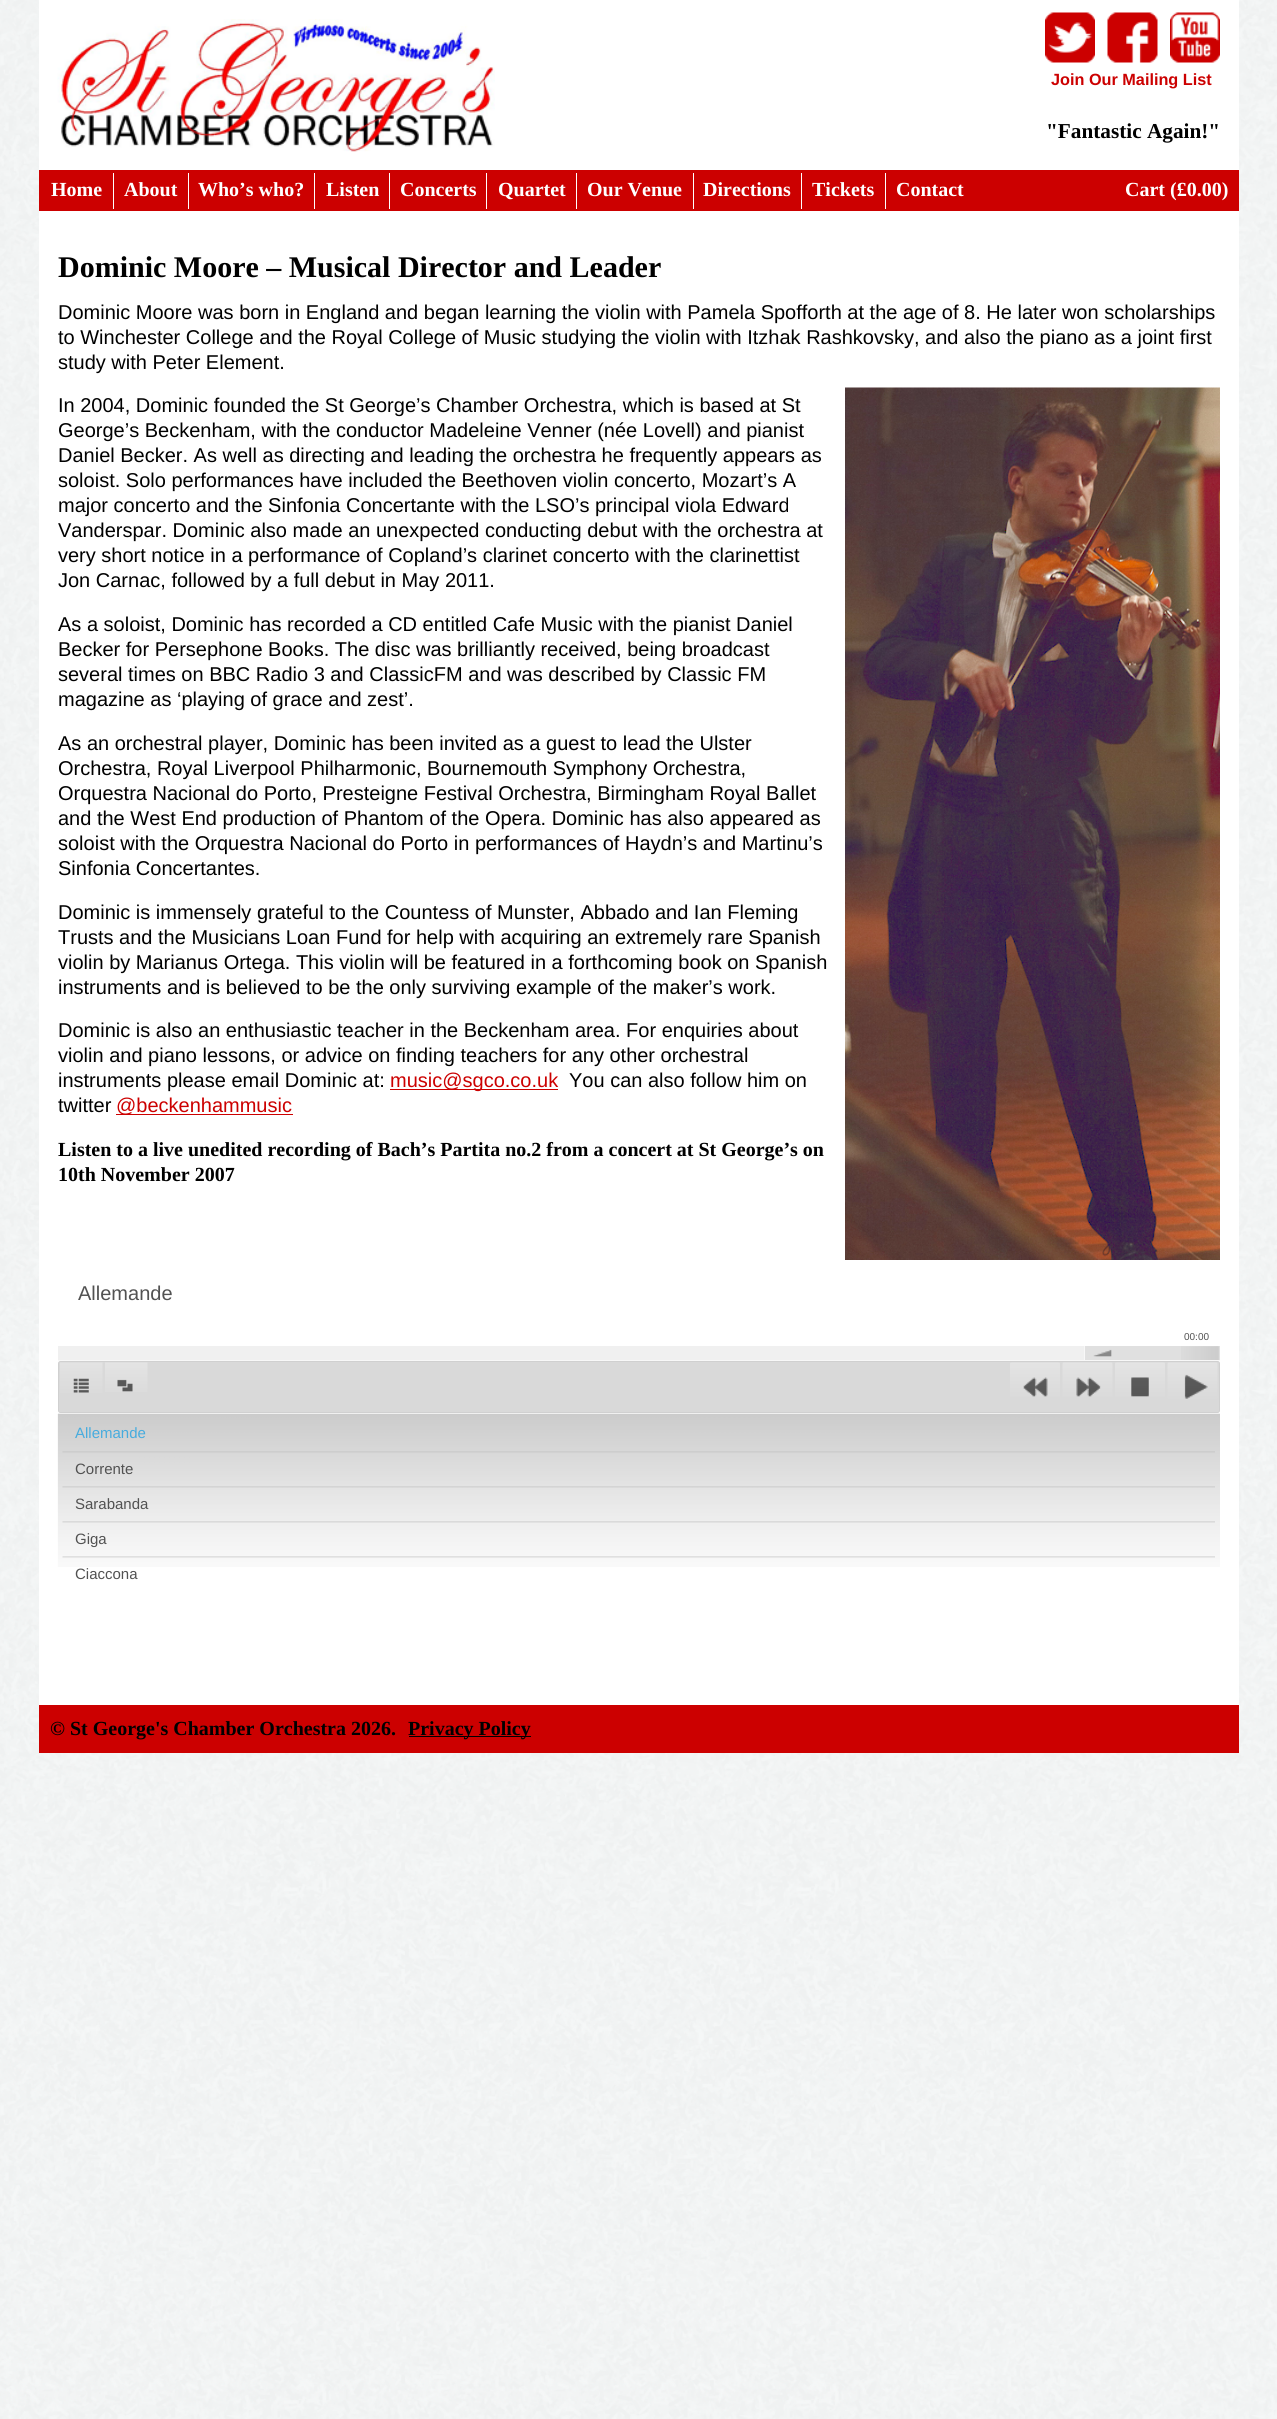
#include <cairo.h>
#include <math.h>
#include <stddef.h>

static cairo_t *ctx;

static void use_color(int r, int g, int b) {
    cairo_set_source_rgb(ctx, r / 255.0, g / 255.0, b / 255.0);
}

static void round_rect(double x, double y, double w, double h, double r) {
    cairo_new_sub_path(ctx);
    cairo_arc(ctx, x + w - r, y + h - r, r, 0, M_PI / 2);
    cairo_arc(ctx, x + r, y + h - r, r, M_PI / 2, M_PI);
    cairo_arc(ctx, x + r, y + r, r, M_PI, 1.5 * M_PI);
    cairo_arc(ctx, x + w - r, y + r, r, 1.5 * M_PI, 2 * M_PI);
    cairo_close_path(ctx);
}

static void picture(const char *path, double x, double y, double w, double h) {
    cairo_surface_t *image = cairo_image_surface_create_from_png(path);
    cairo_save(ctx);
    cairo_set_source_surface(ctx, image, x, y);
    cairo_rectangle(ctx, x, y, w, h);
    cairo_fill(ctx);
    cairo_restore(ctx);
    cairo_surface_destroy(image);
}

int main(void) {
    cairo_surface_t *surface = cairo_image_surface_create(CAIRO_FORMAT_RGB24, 1277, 2419);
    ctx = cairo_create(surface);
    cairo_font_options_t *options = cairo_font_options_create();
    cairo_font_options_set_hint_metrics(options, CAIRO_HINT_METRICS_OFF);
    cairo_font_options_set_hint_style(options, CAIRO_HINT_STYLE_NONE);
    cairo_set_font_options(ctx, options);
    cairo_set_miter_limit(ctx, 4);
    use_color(255, 255, 255);
    cairo_paint(ctx);
    picture("img1.png", 0, 0, 1277, 2419);
    use_color(255, 255, 255);
    cairo_rectangle(ctx, 39, 0, 1200, 1705);
    cairo_fill(ctx);
    picture("img2.png", 57, 19, 438, 133);
    picture("img3.png", 1045, 12, 50, 51);
    picture("img4.png", 1107, 12, 51, 51);
    picture("img5.png", 1170, 12, 50, 51);
    cairo_select_font_face(ctx, "Liberation Sans", CAIRO_FONT_SLANT_NORMAL, CAIRO_FONT_WEIGHT_BOLD);
    cairo_set_font_size(ctx, 16.25);
    use_color(204, 0, 0);
    cairo_move_to(ctx, 1051, 85);
    cairo_show_text(ctx, "Join Our Mailing List");
    cairo_select_font_face(ctx, "Liberation Serif", CAIRO_FONT_SLANT_NORMAL, CAIRO_FONT_WEIGHT_BOLD);
    cairo_set_font_size(ctx, 21.25);
    use_color(0, 0, 0);
    cairo_move_to(ctx, 1046, 138);
    cairo_show_text(ctx, "\"Fantastic Again!\"");
    use_color(204, 0, 0);
    cairo_rectangle(ctx, 39, 170, 1200, 41);
    cairo_fill(ctx);
    use_color(255, 255, 255);
    cairo_rectangle(ctx, 113, 173, 1, 36);
    cairo_fill(ctx);
    cairo_set_font_size(ctx, 20);
    cairo_move_to(ctx, 51, 196);
    cairo_show_text(ctx, "Home");
    cairo_rectangle(ctx, 188, 173, 1, 36);
    cairo_fill(ctx);
    cairo_move_to(ctx, 124, 196);
    cairo_show_text(ctx, "About");
    cairo_rectangle(ctx, 314, 173, 1, 36);
    cairo_fill(ctx);
    cairo_move_to(ctx, 198, 196);
    cairo_show_text(ctx, "Who’s who?");
    cairo_rectangle(ctx, 389, 173, 1, 36);
    cairo_fill(ctx);
    cairo_move_to(ctx, 326, 196);
    cairo_show_text(ctx, "Listen");
    cairo_rectangle(ctx, 486, 173, 1, 36);
    cairo_fill(ctx);
    cairo_move_to(ctx, 400, 196);
    cairo_show_text(ctx, "Concerts");
    cairo_rectangle(ctx, 576, 173, 1, 36);
    cairo_fill(ctx);
    cairo_move_to(ctx, 498, 196);
    cairo_show_text(ctx, "Quartet");
    cairo_rectangle(ctx, 693, 173, 1, 36);
    cairo_fill(ctx);
    cairo_move_to(ctx, 587, 196);
    cairo_show_text(ctx, "Our Venue");
    cairo_rectangle(ctx, 801, 173, 1, 36);
    cairo_fill(ctx);
    cairo_move_to(ctx, 703, 196);
    cairo_show_text(ctx, "Directions");
    cairo_rectangle(ctx, 885, 173, 1, 36);
    cairo_fill(ctx);
    cairo_move_to(ctx, 812, 196);
    cairo_show_text(ctx, "Tickets");
    cairo_move_to(ctx, 896, 196);
    cairo_show_text(ctx, "Contact");
    cairo_move_to(ctx, 1125, 196);
    cairo_show_text(ctx, "Cart (£0.00)");
    cairo_set_font_size(ctx, 30);
    use_color(0, 0, 0);
    cairo_move_to(ctx, 58, 277);
    cairo_show_text(ctx, "Dominic Moore – Musical Director and Leader");
    cairo_select_font_face(ctx, "Liberation Sans", CAIRO_FONT_SLANT_NORMAL, CAIRO_FONT_WEIGHT_NORMAL);
    cairo_set_font_size(ctx, 20);
    cairo_move_to(ctx, 58, 319);
    cairo_show_text(ctx, "Dominic Moore was born in England and began learning the violin with Pamela Spofforth at the age of 8. He later won scholarships");
    cairo_move_to(ctx, 58, 344);
    cairo_show_text(ctx, "to Winchester College and the Royal College of Music studying the violin with Itzhak Rashkovsky, and also the piano as a joint first");
    cairo_move_to(ctx, 58, 369);
    cairo_show_text(ctx, "study with Peter Element.");
    picture("img6.png", 845, 387, 375, 873);
    cairo_move_to(ctx, 58, 412);
    cairo_show_text(ctx, "In 2004, Dominic founded the St George’s Chamber Orchestra, which is based at St");
    cairo_move_to(ctx, 58, 437);
    cairo_show_text(ctx, "George’s Beckenham, with the conductor Madeleine Venner (née Lovell) and pianist");
    cairo_move_to(ctx, 58, 462);
    cairo_show_text(ctx, "Daniel Becker. As well as directing and leading the orchestra he frequently appears as");
    cairo_move_to(ctx, 58, 487);
    cairo_show_text(ctx, "soloist. Solo performances have included the Beethoven violin concerto, Mozart’s A");
    cairo_move_to(ctx, 58, 512);
    cairo_show_text(ctx, "major concerto and the Sinfonia Concertante with the LSO’s principal viola Edward");
    cairo_move_to(ctx, 58, 537);
    cairo_show_text(ctx, "Vanderspar. Dominic also made an unexpected conducting debut with the orchestra at");
    cairo_move_to(ctx, 58, 562);
    cairo_show_text(ctx, "very short notice in a performance of Copland’s clarinet concerto with the clarinettist");
    cairo_move_to(ctx, 58, 587);
    cairo_show_text(ctx, "Jon Carnac, followed by a full debut in May 2011.");
    cairo_move_to(ctx, 58, 631);
    cairo_show_text(ctx, "As a soloist, Dominic has recorded a CD entitled Cafe Music with the pianist Daniel");
    cairo_move_to(ctx, 58, 656);
    cairo_show_text(ctx, "Becker for Persephone Books. The disc was brilliantly received, being broadcast");
    cairo_move_to(ctx, 58, 681);
    cairo_show_text(ctx, "several times on BBC Radio 3 and ClassicFM and was described by Classic FM");
    cairo_move_to(ctx, 58, 706);
    cairo_show_text(ctx, "magazine as ‘playing of grace and zest’.");
    cairo_move_to(ctx, 58, 750);
    cairo_show_text(ctx, "As an orchestral player, Dominic has been invited as a guest to lead the Ulster");
    cairo_move_to(ctx, 58, 775);
    cairo_show_text(ctx, "Orchestra, Royal Liverpool Philharmonic, Bournemouth Symphony Orchestra,");
    cairo_move_to(ctx, 58, 800);
    cairo_show_text(ctx, "Orquestra Nacional do Porto, Presteigne Festival Orchestra, Birmingham Royal Ballet");
    cairo_move_to(ctx, 58, 825);
    cairo_show_text(ctx, "and the West End production of Phantom of the Opera. Dominic has also appeared as");
    cairo_move_to(ctx, 58, 850);
    cairo_show_text(ctx, "soloist with the Orquestra Nacional do Porto in performances of Haydn’s and Martinu’s");
    cairo_move_to(ctx, 58, 875);
    cairo_show_text(ctx, "Sinfonia Concertantes.");
    cairo_move_to(ctx, 58, 919);
    cairo_show_text(ctx, "Dominic is immensely grateful to the Countess of Munster, Abbado and Ian Fleming");
    cairo_move_to(ctx, 58, 944);
    cairo_show_text(ctx, "Trusts and the Musicians Loan Fund for help with acquiring an extremely rare Spanish");
    cairo_move_to(ctx, 58, 969);
    cairo_show_text(ctx, "violin by Marianus Ortega. This violin will be featured in a forthcoming book on Spanish");
    cairo_move_to(ctx, 58, 994);
    cairo_show_text(ctx, "instruments and is believed to be the only surviving example of the maker’s work.");
    cairo_move_to(ctx, 58, 1037);
    cairo_show_text(ctx, "Dominic is also an enthusiastic teacher in the Beckenham area. For enquiries about");
    cairo_move_to(ctx, 58, 1062);
    cairo_show_text(ctx, "violin and piano lessons, or advice on finding teachers for any other orchestral");
    cairo_move_to(ctx, 58, 1087);
    cairo_show_text(ctx, "instruments please email Dominic at:");
    use_color(204, 0, 0);
    cairo_rectangle(ctx, 390, 1089, 168, 1);
    cairo_fill(ctx);
    cairo_move_to(ctx, 390, 1087);
    cairo_show_text(ctx, "music@sgco.co.uk");
    use_color(0, 0, 0);
    cairo_move_to(ctx, 569, 1087);
    cairo_show_text(ctx, "You can also follow him on");
    cairo_move_to(ctx, 58, 1112);
    cairo_show_text(ctx, "twitter");
    use_color(204, 0, 0);
    cairo_rectangle(ctx, 116, 1114, 177, 1);
    cairo_fill(ctx);
    cairo_move_to(ctx, 116, 1112);
    cairo_show_text(ctx, "@beckenhammusic");
    cairo_select_font_face(ctx, "Liberation Serif", CAIRO_FONT_SLANT_NORMAL, CAIRO_FONT_WEIGHT_BOLD);
    use_color(0, 0, 0);
    cairo_move_to(ctx, 58, 1156);
    cairo_show_text(ctx, "Listen to a live unedited recording of Bach’s Partita no.2 from a concert at St George’s on");
    cairo_move_to(ctx, 58, 1181);
    cairo_show_text(ctx, "10th November 2007");
    cairo_select_font_face(ctx, "Liberation Sans", CAIRO_FONT_SLANT_NORMAL, CAIRO_FONT_WEIGHT_NORMAL);
    use_color(82, 82, 82);
    cairo_move_to(ctx, 78, 1300);
    cairo_show_text(ctx, "Allemande");
    cairo_set_font_size(ctx, 10);
    cairo_move_to(ctx, 1184, 1340);
    cairo_show_text(ctx, "00:00");
    cairo_set_source_rgba(ctx, 0.918, 0.918, 0.918, 0.75);
    cairo_rectangle(ctx, 58, 1346, 1026, 14);
    cairo_fill(ctx);
    use_color(248, 248, 248);
    cairo_rectangle(ctx, 58, 1360, 1162, 1);
    cairo_fill(ctx);
    use_color(217, 217, 217);
    round_rect(58.5, 1361.5, 1161, 51, 2);
    cairo_fill_preserve(ctx);
    use_color(208, 208, 208);
    cairo_set_line_width(ctx, 1);
    cairo_stroke(ctx);
    picture("img7.png", 60, 1362, 43, 31);
    picture("img8.png", 105, 1362, 43, 30);
    picture("img9.png", 1010, 1362, 50, 35);
    picture("img10.png", 1062, 1362, 51, 35);
    picture("img11.png", 1115, 1362, 50, 35);
    picture("img12.png", 1167, 1362, 51, 37);
    use_color(224, 224, 224);
    cairo_rectangle(ctx, 1085, 1346, 135, 14);
    cairo_fill(ctx);
    use_color(248, 248, 248);
    cairo_rectangle(ctx, 1084, 1346, 1, 15);
    cairo_fill(ctx);
    picture("img13.png", 1093, 1349, 19, 8);
    picture("img14.png", 1181, 1346, 38, 14);
    picture("img15.png", 57, 1414, 1163, 153);
    use_color(240, 240, 240);
    cairo_rectangle(ctx, 58, 1413, 1162, 1);
    cairo_fill(ctx);
    picture("img16.png", 62, 1451, 1153, 2);
    cairo_set_font_size(ctx, 15);
    use_color(71, 172, 222);
    cairo_move_to(ctx, 75, 1438);
    cairo_show_text(ctx, "Allemande");
    picture("img17.png", 62, 1486, 1153, 2);
    use_color(82, 82, 82);
    cairo_move_to(ctx, 75, 1474);
    cairo_show_text(ctx, "Corrente");
    picture("img18.png", 62, 1521, 1153, 2);
    cairo_move_to(ctx, 75, 1509);
    cairo_show_text(ctx, "Sarabanda");
    picture("img19.png", 62, 1556, 1153, 2);
    cairo_move_to(ctx, 75, 1544);
    cairo_show_text(ctx, "Giga");
    cairo_move_to(ctx, 75, 1579);
    cairo_show_text(ctx, "Ciaccona");
    use_color(204, 0, 0);
    cairo_rectangle(ctx, 39, 1705, 1200, 48);
    cairo_fill(ctx);
    cairo_select_font_face(ctx, "Liberation Serif", CAIRO_FONT_SLANT_NORMAL, CAIRO_FONT_WEIGHT_BOLD);
    cairo_set_font_size(ctx, 20);
    use_color(0, 0, 0);
    cairo_move_to(ctx, 50, 1735);
    cairo_show_text(ctx, "© St George's Chamber Orchestra 2026.");
    cairo_rectangle(ctx, 409, 1736, 122, 1);
    cairo_fill(ctx);
    cairo_move_to(ctx, 408, 1735);
    cairo_show_text(ctx, "Privacy Policy");
    cairo_surface_write_to_png(surface, "result.png");
    cairo_font_options_destroy(options);
    cairo_destroy(ctx);
    cairo_surface_destroy(surface);
    return 0;
}
